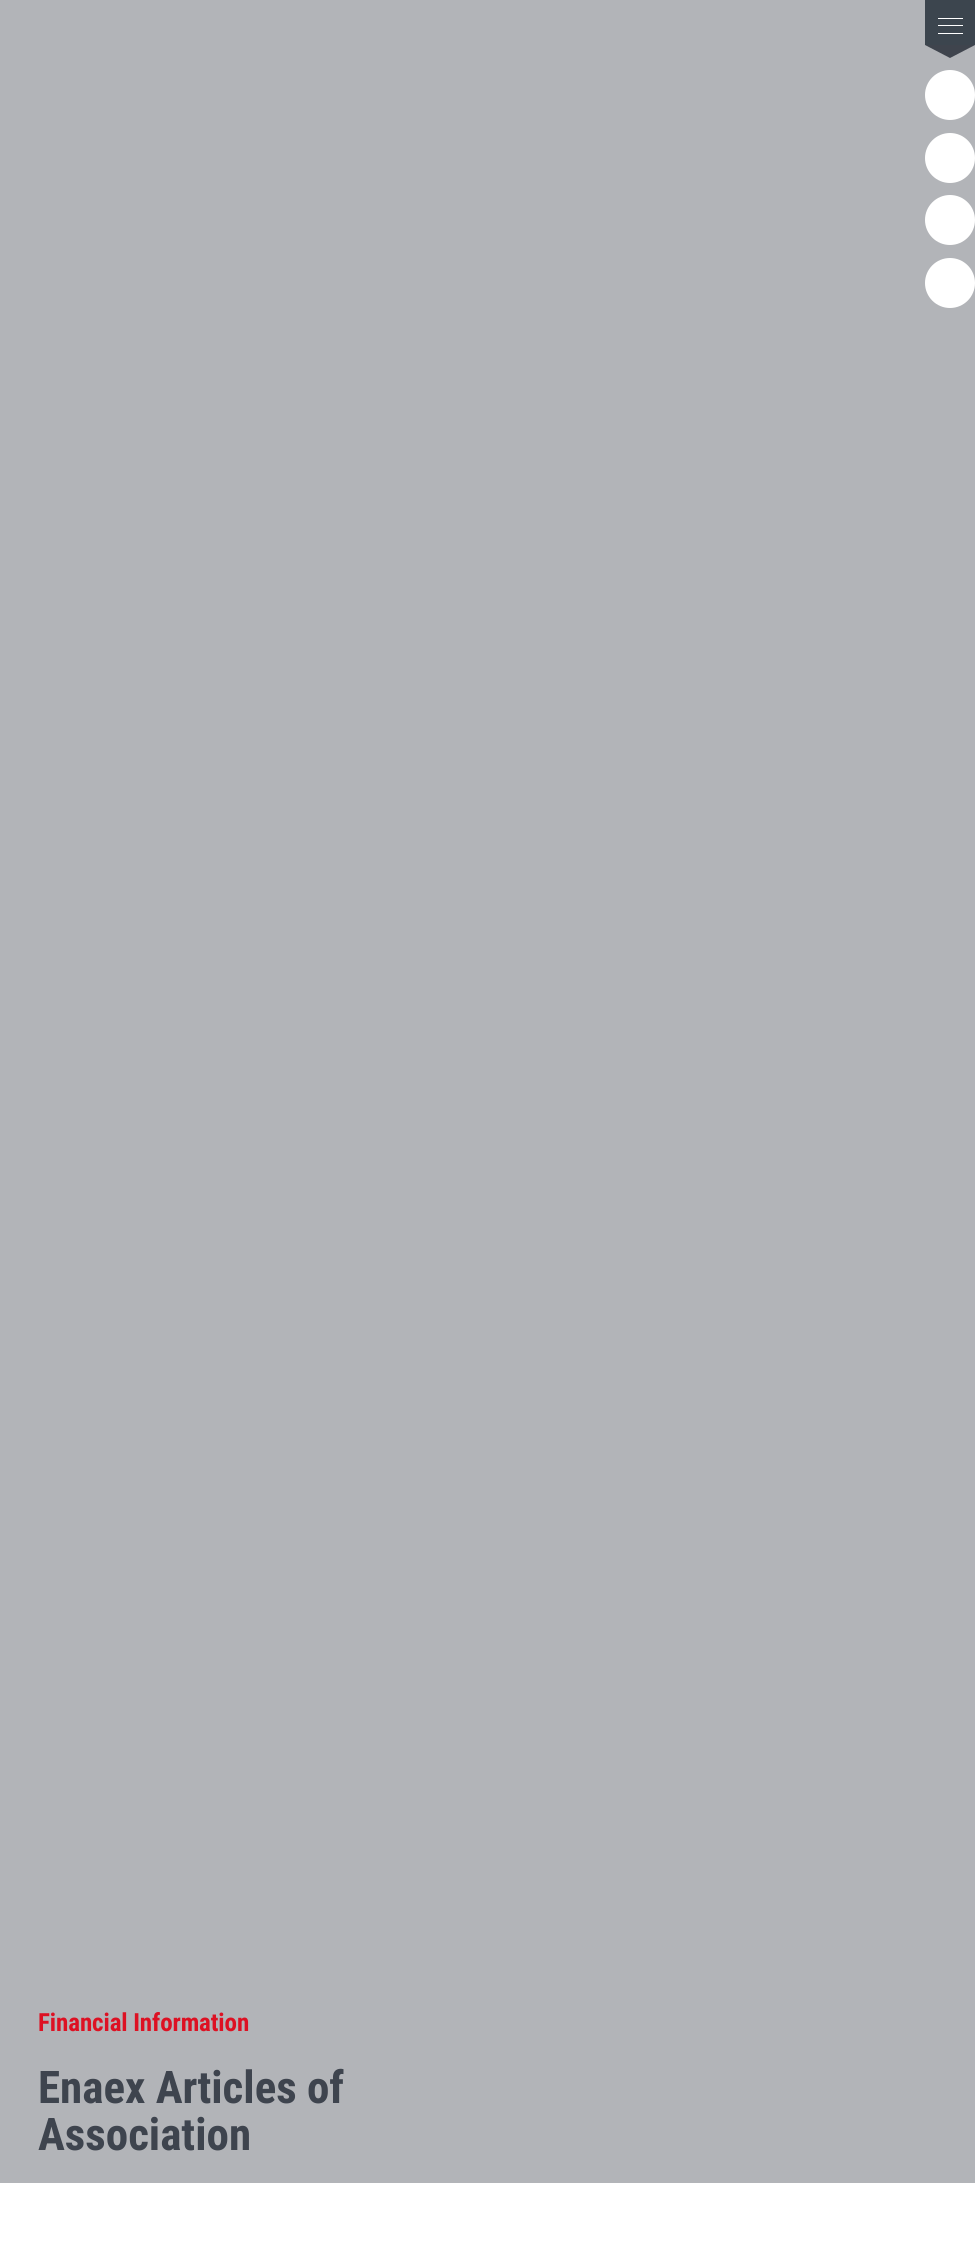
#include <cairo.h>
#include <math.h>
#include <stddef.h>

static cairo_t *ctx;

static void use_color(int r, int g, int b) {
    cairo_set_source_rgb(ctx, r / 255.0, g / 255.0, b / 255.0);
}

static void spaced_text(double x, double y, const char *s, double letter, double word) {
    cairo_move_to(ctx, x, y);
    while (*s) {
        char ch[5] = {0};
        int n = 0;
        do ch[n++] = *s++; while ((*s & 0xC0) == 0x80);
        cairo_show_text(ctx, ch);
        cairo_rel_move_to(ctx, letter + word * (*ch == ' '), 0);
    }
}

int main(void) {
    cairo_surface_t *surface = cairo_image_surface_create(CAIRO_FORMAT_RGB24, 975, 2257);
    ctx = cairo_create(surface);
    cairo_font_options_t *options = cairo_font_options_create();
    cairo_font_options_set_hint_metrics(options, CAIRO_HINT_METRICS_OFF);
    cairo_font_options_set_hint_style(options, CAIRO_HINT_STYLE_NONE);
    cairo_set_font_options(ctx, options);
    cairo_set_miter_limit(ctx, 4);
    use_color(255, 255, 255);
    cairo_paint(ctx);
    use_color(178, 180, 184);
    cairo_rectangle(ctx, 0, 0, 975, 2183);
    cairo_fill(ctx);
    use_color(60, 69, 78);
    cairo_rectangle(ctx, 925, 0, 50, 45);
    cairo_fill(ctx);
    use_color(255, 255, 255);
    cairo_rectangle(ctx, 938, 18, 25, 1);
    cairo_fill(ctx);
    cairo_rectangle(ctx, 938, 25, 25, 1);
    cairo_fill(ctx);
    cairo_rectangle(ctx, 938, 33, 25, 1);
    cairo_fill(ctx);
    use_color(63, 68, 77);
    cairo_new_path(ctx);
    cairo_move_to(ctx, 925, 45);
    cairo_line_to(ctx, 975, 45);
    cairo_line_to(ctx, 950, 58);
    cairo_close_path(ctx);
    cairo_fill(ctx);
    use_color(255, 255, 255);
    cairo_arc(ctx, 950, 95, 25, 0, 2 * M_PI);
    cairo_fill(ctx);
    cairo_arc(ctx, 950, 158, 25, 0, 2 * M_PI);
    cairo_fill(ctx);
    cairo_arc(ctx, 950, 220, 25, 0, 2 * M_PI);
    cairo_fill(ctx);
    cairo_arc(ctx, 950, 283, 25, 0, 2 * M_PI);
    cairo_fill(ctx);
    cairo_select_font_face(ctx, "Roboto Condensed", CAIRO_FONT_SLANT_NORMAL, CAIRO_FONT_WEIGHT_BOLD);
    cairo_set_font_size(ctx, 25);
    use_color(221, 17, 35);
    spaced_text(38, 2031, "Financial Information", -0.1, 0);
    cairo_set_font_size(ctx, 45);
    use_color(62, 68, 78);
    cairo_move_to(ctx, 38, 2103);
    cairo_show_text(ctx, "Enaex Articles of");
    cairo_move_to(ctx, 38, 2150);
    cairo_show_text(ctx, "Association");
    cairo_surface_write_to_png(surface, "result.png");
    cairo_font_options_destroy(options);
    cairo_destroy(ctx);
    cairo_surface_destroy(surface);
    return 0;
}
